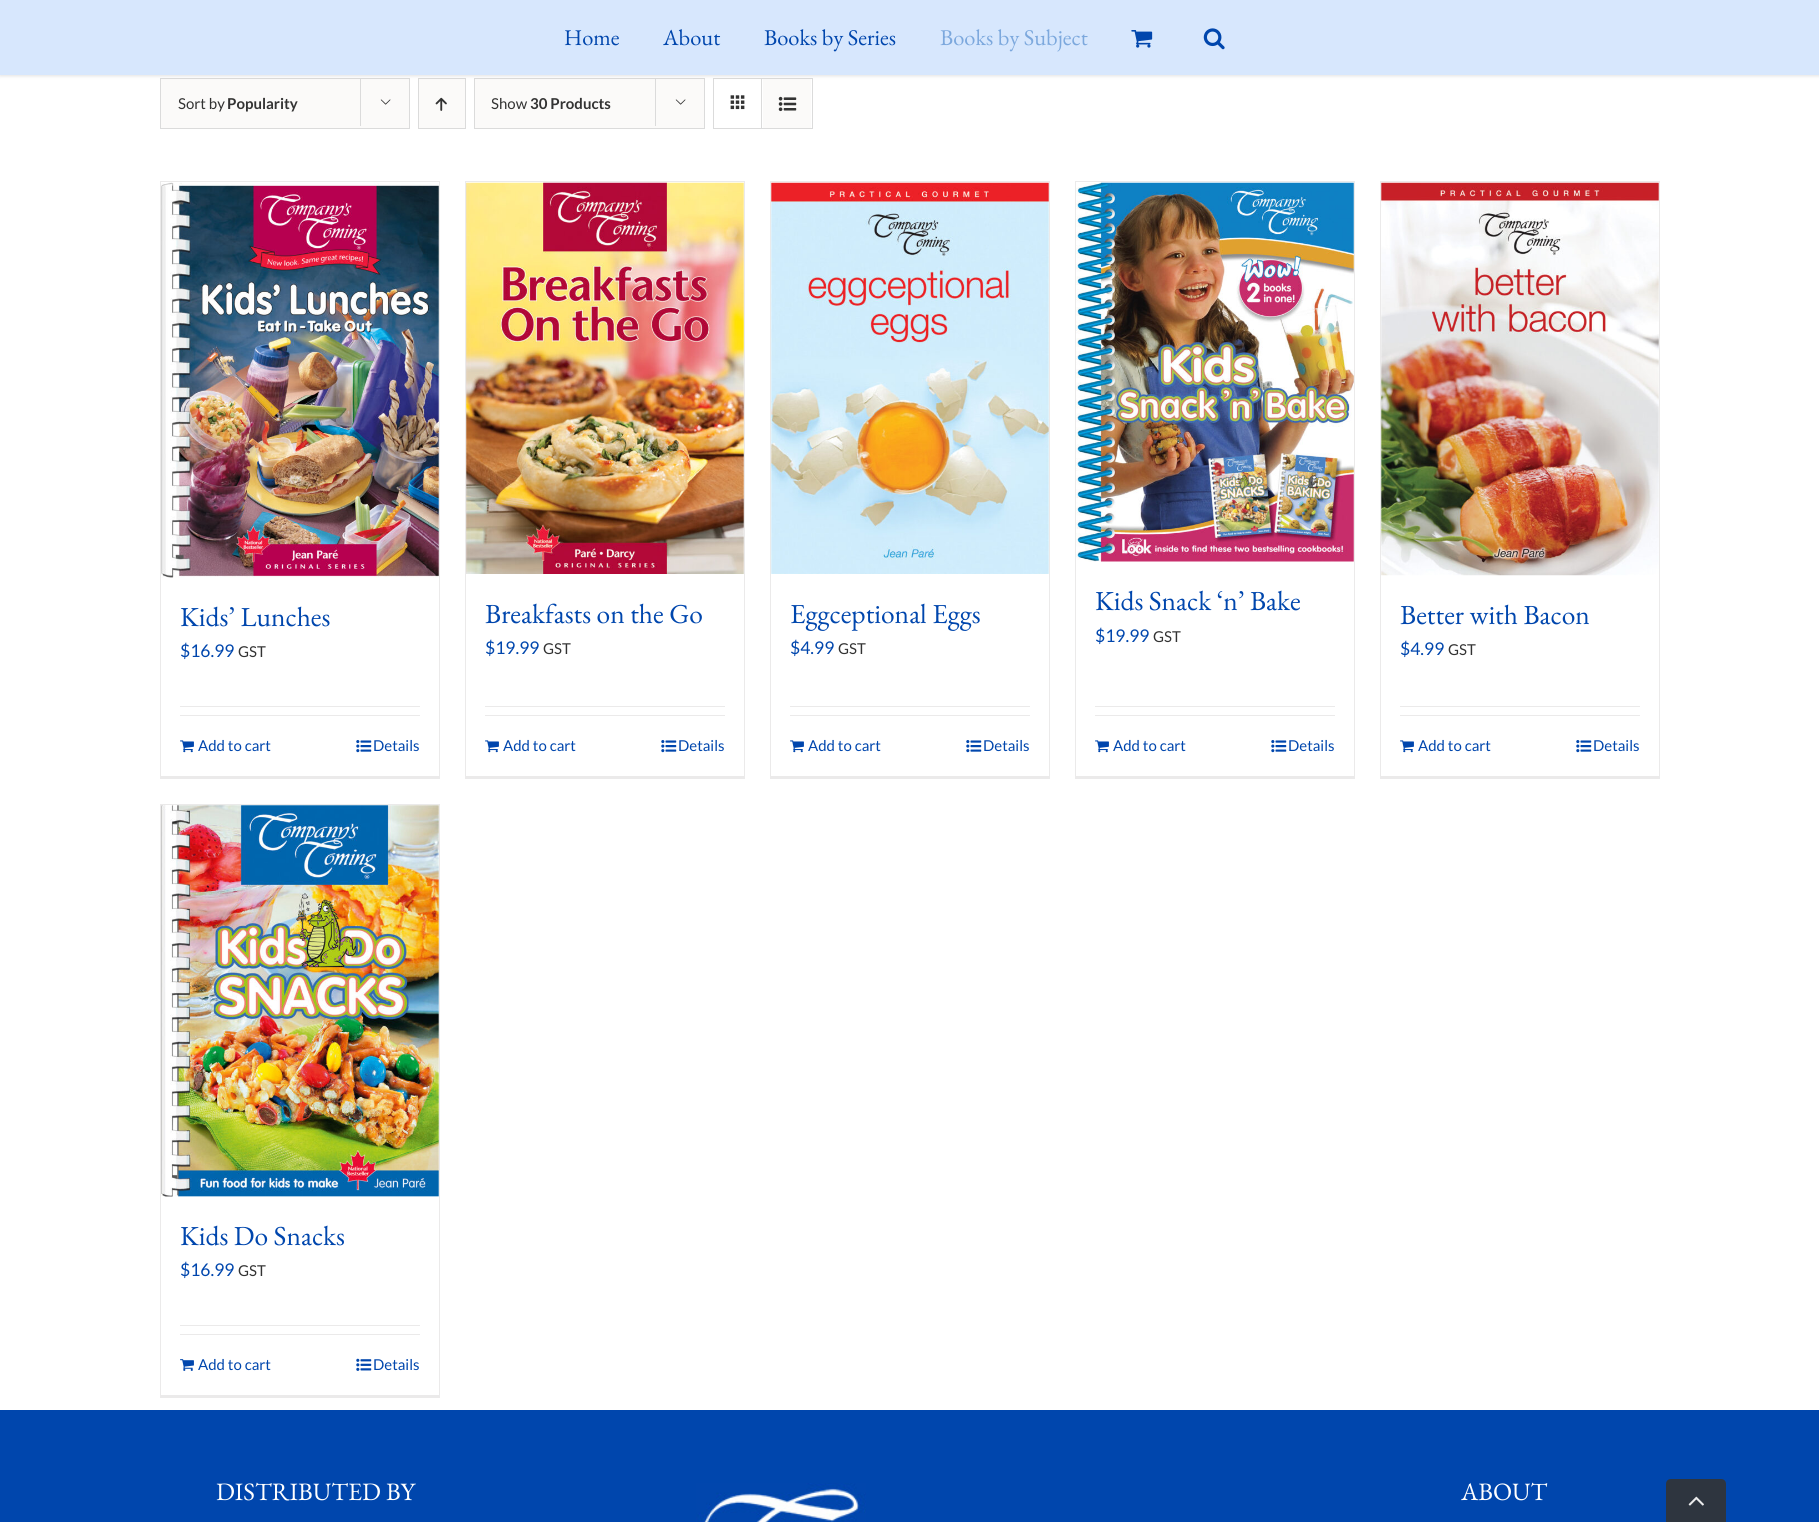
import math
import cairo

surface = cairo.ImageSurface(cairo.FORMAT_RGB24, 1819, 1522)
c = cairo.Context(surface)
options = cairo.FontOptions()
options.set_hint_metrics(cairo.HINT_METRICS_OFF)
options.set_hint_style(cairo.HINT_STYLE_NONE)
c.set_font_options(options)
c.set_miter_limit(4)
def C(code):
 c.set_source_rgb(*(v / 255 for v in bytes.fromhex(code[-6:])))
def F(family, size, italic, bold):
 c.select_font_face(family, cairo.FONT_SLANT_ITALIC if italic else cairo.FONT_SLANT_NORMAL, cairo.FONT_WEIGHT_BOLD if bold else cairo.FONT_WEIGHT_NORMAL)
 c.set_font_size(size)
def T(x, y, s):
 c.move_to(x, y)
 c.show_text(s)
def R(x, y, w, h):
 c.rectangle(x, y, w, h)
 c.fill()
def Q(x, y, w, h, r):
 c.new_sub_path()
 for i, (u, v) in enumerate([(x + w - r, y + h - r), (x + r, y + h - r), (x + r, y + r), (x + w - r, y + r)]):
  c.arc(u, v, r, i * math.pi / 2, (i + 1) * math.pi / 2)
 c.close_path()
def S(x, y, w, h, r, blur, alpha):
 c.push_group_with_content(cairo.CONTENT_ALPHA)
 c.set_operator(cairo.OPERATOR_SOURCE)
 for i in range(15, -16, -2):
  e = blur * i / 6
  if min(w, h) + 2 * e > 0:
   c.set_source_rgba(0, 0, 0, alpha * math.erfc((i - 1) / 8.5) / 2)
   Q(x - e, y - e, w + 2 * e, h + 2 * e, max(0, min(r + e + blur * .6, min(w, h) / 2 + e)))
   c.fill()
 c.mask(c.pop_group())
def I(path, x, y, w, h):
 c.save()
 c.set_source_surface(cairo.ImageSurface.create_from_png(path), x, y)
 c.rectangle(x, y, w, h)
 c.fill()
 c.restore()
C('ffffff')
c.paint()
C('fbfaf9')
c.rectangle(160.5,78.5,249,50)
c.fill_preserve()
C('dbdbdb')
c.set_line_width(1)
c.stroke()
R(360,78,1,48)
C('fbfaf9')
c.rectangle(418.5,78.5,47,50)
c.fill_preserve()
C('dbdbdb')
c.stroke()
C('fbfaf9')
c.rectangle(474.5,78.5,230,50)
c.fill_preserve()
C('dbdbdb')
c.stroke()
R(655,78,1,48)
c.rectangle(713.5,78.5,99,50)
c.stroke()
R(761,79,1,49)
C('fbfaf9')
R(763,79,48,49)
C('000000')
S(0,1,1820,75,0,2,.12)
C('d7e7fd')
R(0,0,1819,75)
F('EB Garamond',22.5,0,0)
C('0046ad')
T(564,45,'Home')
T(663,45,'About')
T(764,45,'Books by Series')
C('7ca8dd')
T(940,45,'Books by Subject')
I('1.png',1131,30,22,18)
I('2.png',1203,28,22,22)
F('Lato',15,0,0)
C('333333')
T(178,109,'Sort by')
F('Lato',15,0,1)
T(227,109,'Popularity')
I('3.png',380,99,11,6)
I('4.png',435,97,12,14)
F('Lato',15,0,0)
T(491,109,'Show')
F('Lato',15,0,1)
T(530,109,'30 Products')
I('3.png',675,99,11,6)
I('5.png',730,95,15,15)
I('6.png',778,96,19,16)
C('ebeaea')
R(160,181,280,1)
R(439,181,1,598)
R(160,776,280,3)
R(160,181,1,598)
I('7.png',161,182,278,396)
F('EB Garamond',27.5,0,0)
C('0046ad')
T(180,626,'Kids’ Lunches')
F('Lato',17.5,0,0)
T(180,657,'$16.99')
F('Lato',15,0,0)
C('333333')
T(238,657,'GST')
C('ebeaea')
R(180,706,240,1)
R(180,715,240,1)
I('8.png',180,740,14,13)
C('0046ad')
T(198,751,'Add to cart')
I('9.png',356,740,16,13)
T(373,751,'Details')
C('ebeaea')
R(465,181,280,1)
R(744,181,1,598)
R(465,776,280,3)
R(465,181,1,598)
I('10.png',466,182,278,392)
F('EB Garamond',27.5,0,0)
C('0046ad')
T(485,623,'Breakfasts on the Go')
F('Lato',17.5,0,0)
T(485,654,'$19.99')
F('Lato',15,0,0)
C('333333')
T(543,654,'GST')
C('ebeaea')
R(485,706,240,1)
R(485,715,240,1)
I('8.png',485,740,14,13)
C('0046ad')
T(503,751,'Add to cart')
I('9.png',661,740,16,13)
T(678,751,'Details')
C('ebeaea')
R(770,181,280,1)
R(1049,181,1,598)
R(770,776,280,3)
R(770,181,1,598)
I('11.png',771,182,278,392)
F('EB Garamond',27.5,0,0)
C('0046ad')
T(790,623,'Eggceptional Eggs')
F('Lato',17.5,0,0)
T(790,654,'$4.99')
F('Lato',15,0,0)
C('333333')
T(838,654,'GST')
C('ebeaea')
R(790,706,240,1)
R(790,715,240,1)
I('8.png',790,740,14,13)
C('0046ad')
T(808,751,'Add to cart')
I('9.png',966,740,16,13)
T(983,751,'Details')
C('ebeaea')
R(1075,181,280,1)
R(1354,181,1,598)
R(1075,776,280,3)
R(1075,181,1,598)
I('12.png',1076,182,278,380)
F('EB Garamond',27.5,0,0)
C('0046ad')
T(1095,610,'Kids Snack ‘n’ Bake')
F('Lato',17.5,0,0)
T(1095,642,'$19.99')
F('Lato',15,0,0)
C('333333')
T(1153,642,'GST')
C('ebeaea')
R(1095,706,240,1)
R(1095,715,240,1)
I('8.png',1095,740,14,13)
C('0046ad')
T(1113,751,'Add to cart')
I('9.png',1271,740,16,13)
T(1288,751,'Details')
C('ebeaea')
R(1380,181,280,1)
R(1659,181,1,598)
R(1380,776,280,3)
R(1380,181,1,598)
I('13.png',1381,182,278,394)
F('EB Garamond',27.5,0,0)
C('0046ad')
T(1400,624,'Better with Bacon')
F('Lato',17.5,0,0)
T(1400,655,'$4.99')
F('Lato',15,0,0)
C('333333')
T(1448,655,'GST')
C('ebeaea')
R(1400,706,240,1)
R(1400,715,240,1)
I('8.png',1400,740,14,13)
C('0046ad')
T(1418,751,'Add to cart')
I('9.png',1576,740,16,13)
T(1593,751,'Details')
C('ebeaea')
R(160,804,280,1)
R(439,804,1,594)
R(160,1395,280,3)
R(160,804,1,594)
I('14.png',161,805,278,392)
F('EB Garamond',27.5,0,0)
C('0046ad')
T(180,1245,'Kids Do Snacks')
F('Lato',17.5,0,0)
T(180,1276,'$16.99')
F('Lato',15,0,0)
C('333333')
T(238,1276,'GST')
C('ebeaea')
R(180,1325,240,1)
R(180,1334,240,1)
I('15.png',180,1359,14,12)
C('0046ad')
T(198,1370,'Add to cart')
I('16.png',356,1358,16,13)
T(373,1370,'Details')
R(0,1410,1819,112)
F('EB Garamond',25,0,0)
C('ffffff')
T(216,1500,'DISTRIBUTED BY')
I('17.png',696,1483,170,39)
T(1461,1500,'ABOUT')
C('2e353f')
c.new_path()
c.move_to(1671,1479)
c.line_to(1721,1479)
c.curve_to(1724,1479,1726,1481,1726,1484)
c.line_to(1726,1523)
c.line_to(1666,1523)
c.line_to(1666,1484)
c.curve_to(1666,1481,1668,1479,1671,1479)
c.close_path()
c.fill()
I('18.png',1688,1496,16,10)
surface.write_to_png('o.png')
